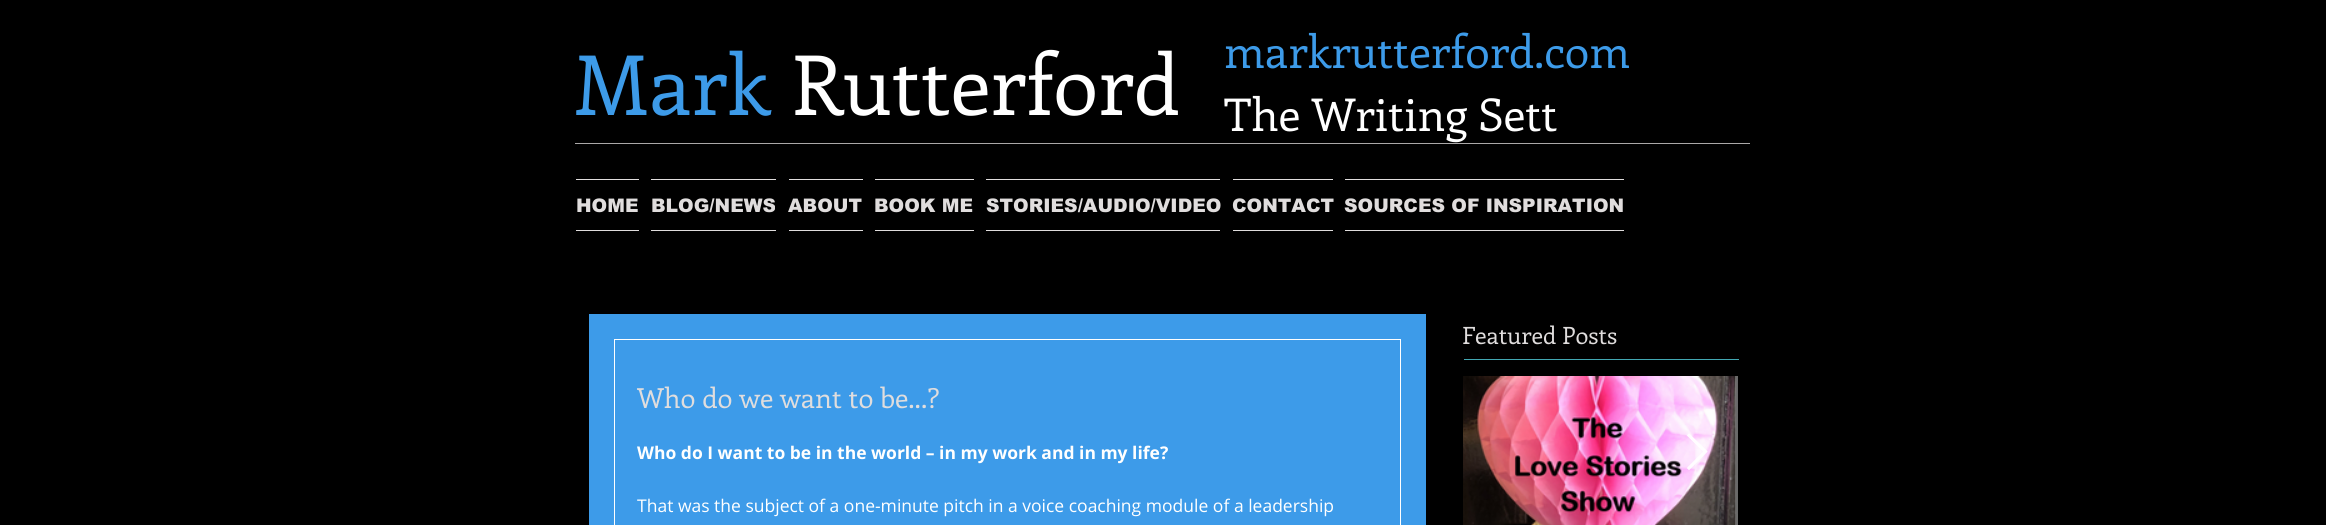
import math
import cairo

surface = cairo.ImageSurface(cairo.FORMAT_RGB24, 2326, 525)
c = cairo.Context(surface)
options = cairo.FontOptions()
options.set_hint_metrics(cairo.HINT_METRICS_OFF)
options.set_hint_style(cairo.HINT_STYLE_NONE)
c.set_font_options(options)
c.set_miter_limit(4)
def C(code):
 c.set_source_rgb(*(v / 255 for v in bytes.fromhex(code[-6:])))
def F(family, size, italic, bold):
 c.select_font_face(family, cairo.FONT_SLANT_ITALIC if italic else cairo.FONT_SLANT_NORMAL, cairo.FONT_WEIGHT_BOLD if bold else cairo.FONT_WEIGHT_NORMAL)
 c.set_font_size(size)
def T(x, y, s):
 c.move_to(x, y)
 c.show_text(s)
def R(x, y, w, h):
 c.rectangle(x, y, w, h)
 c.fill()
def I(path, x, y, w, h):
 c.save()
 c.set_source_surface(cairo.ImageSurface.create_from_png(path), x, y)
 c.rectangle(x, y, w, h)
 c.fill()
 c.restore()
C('000000')
c.paint()
F('Enriqueta',82.5,0,0)
C('3d9be9')
T(574,115,'Mark')
C('ffffff')
T(791,115,'Rutterford')
F('Enriqueta',45,0,0)
C('3d9be9')
T(1224,68,'markrutterford.com')
C('ffffff')
T(1224,131,'The Writing Sett')
C('aaa8a8')
R(575,143,1175,1)
C('e0dddd')
R(576,179,63,1)
R(576,230,63,1)
F('arial Black',18.75,0,0)
T(576,212,'HOME')
R(651,179,125,1)
R(651,230,125,1)
T(651,212,'BLOG/NEWS')
R(789,179,74,1)
R(789,230,74,1)
T(788,212,'ABOUT')
R(875,179,99,1)
R(875,230,99,1)
T(874,212,'BOOK ME')
R(986,179,234,1)
R(986,230,234,1)
T(986,212,'STORIES/AUDIO/VIDEO')
R(1233,179,100,1)
R(1233,230,100,1)
T(1232,212,'CONTACT')
R(1345,179,279,1)
R(1345,230,279,1)
T(1344,212,'SOURCES OF INSPIRATION')
F('Enriqueta',23.75,0,0)
T(1462,344,'Featured Posts')
C('42a7b2')
R(1464,359,275,1)
C('3d9be9')
R(589,314,837,211)
c.rectangle(614.5,339.5,786,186)
C('ffffff')
c.set_line_width(1)
c.stroke()
F('Enriqueta',27.5,0,0)
C('e0dddd')
T(637,408,'Who do we want to be...?')
F('Open Sans',17.5,0,1)
C('ffffff')
T(637,459,'Who do I want to be in the world – in my work and in my life?')
F('Open Sans',17.5,0,0)
T(637,512,'That was the subject of a one-minute pitch in a voice coaching module of a leadership')
I('1.png',1463,376,275,149)
c.set_source_rgba(1,1,1,0.9)
c.new_path()
c.move_to(1687.5,435.5)
c.line_to(1689,434)
c.line_to(1707,451.5)
c.line_to(1689,469.5)
c.line_to(1687.5,468)
c.line_to(1704,451.5)
c.close_path()
c.fill_preserve()
c.stroke()
surface.write_to_png('o.png')
